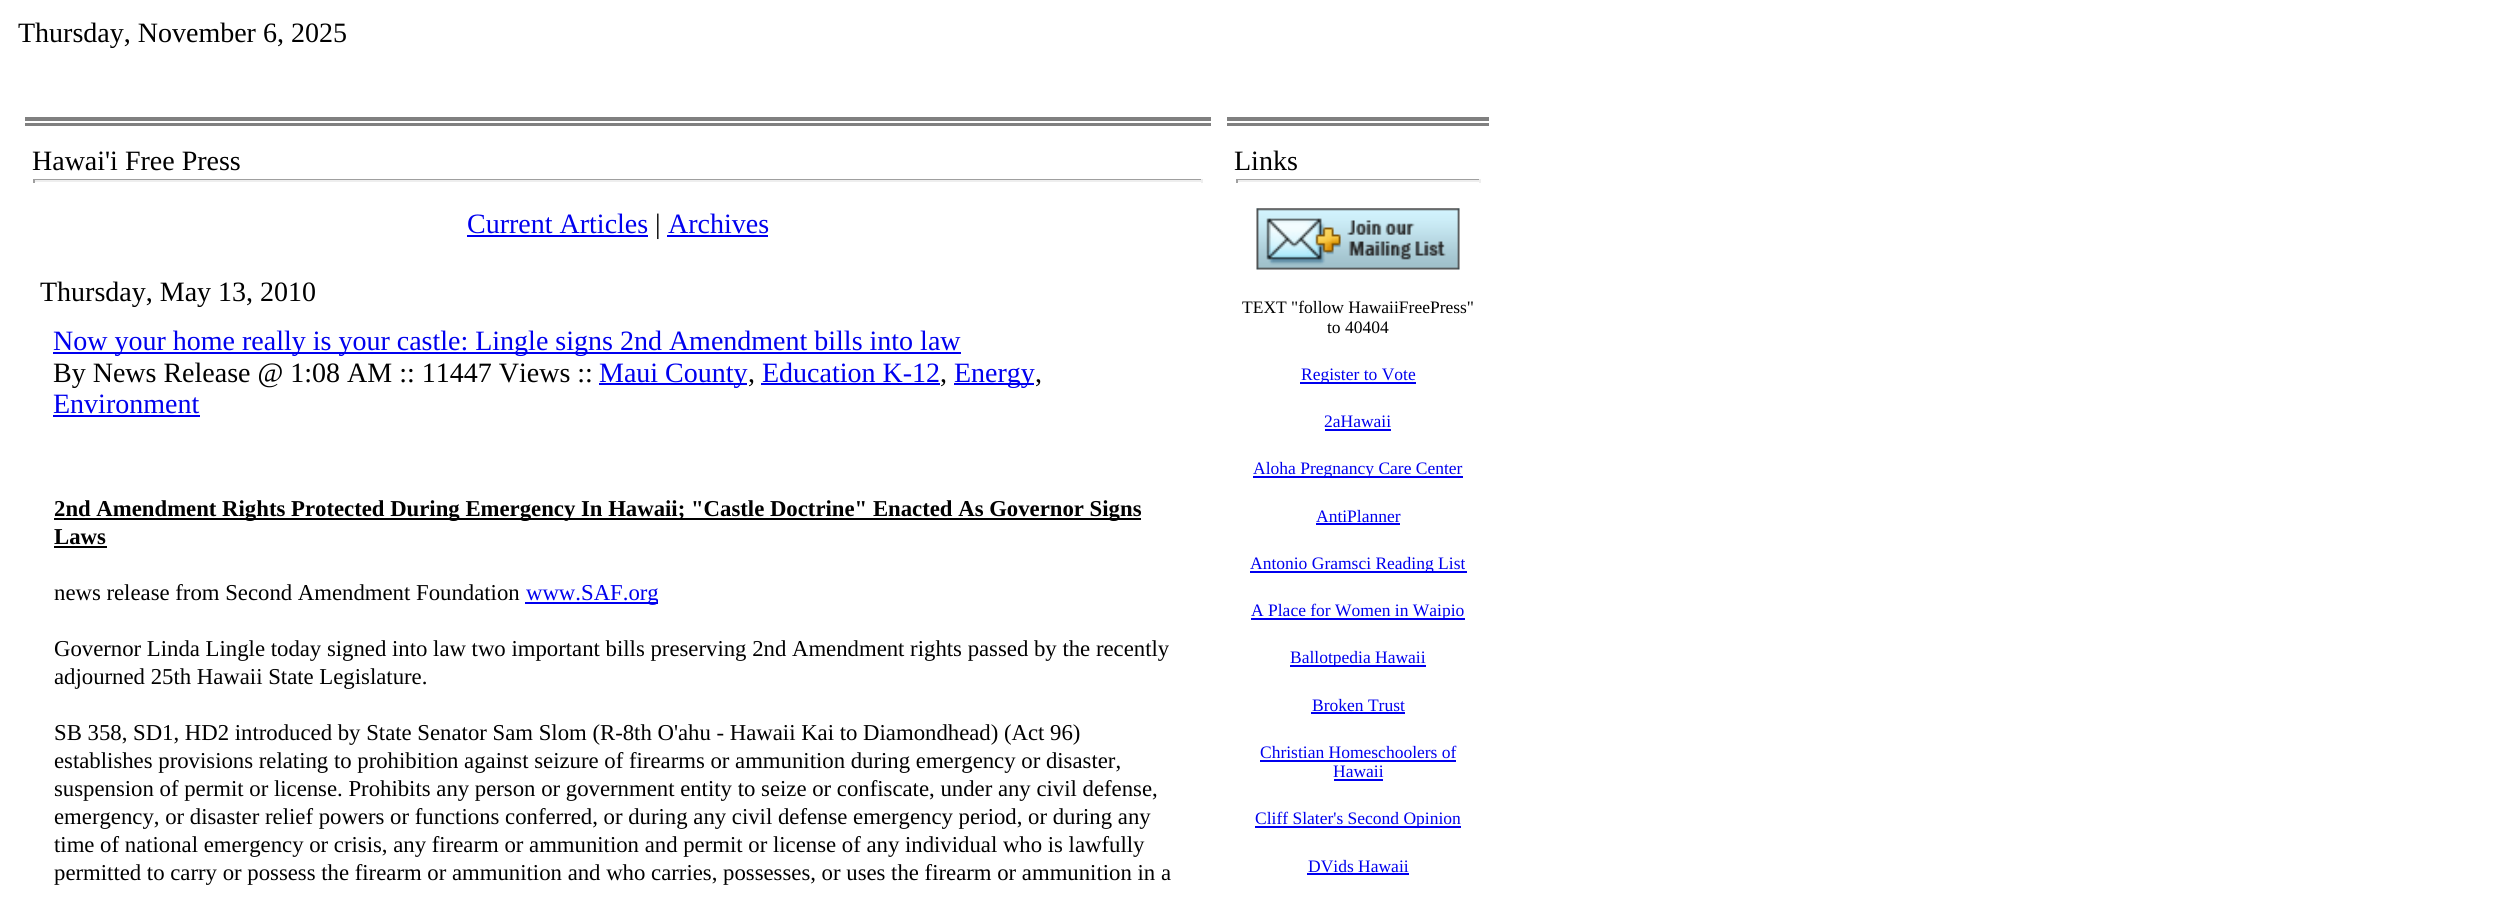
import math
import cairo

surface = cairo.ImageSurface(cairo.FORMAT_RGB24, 2505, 899)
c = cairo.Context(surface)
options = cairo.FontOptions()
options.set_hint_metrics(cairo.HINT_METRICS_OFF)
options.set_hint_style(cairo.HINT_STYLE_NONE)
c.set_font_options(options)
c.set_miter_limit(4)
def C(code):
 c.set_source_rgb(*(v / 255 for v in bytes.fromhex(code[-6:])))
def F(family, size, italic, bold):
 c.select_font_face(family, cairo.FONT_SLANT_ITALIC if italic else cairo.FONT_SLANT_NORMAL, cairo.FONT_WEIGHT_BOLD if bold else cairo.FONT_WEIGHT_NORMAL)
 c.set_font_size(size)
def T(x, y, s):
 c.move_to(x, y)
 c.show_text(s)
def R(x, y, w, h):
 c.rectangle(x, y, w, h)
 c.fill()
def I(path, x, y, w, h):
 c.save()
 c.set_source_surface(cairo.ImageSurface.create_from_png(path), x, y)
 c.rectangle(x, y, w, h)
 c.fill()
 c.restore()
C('ffffff')
c.paint()
F('Liberation Serif',28,0,0)
C('000000')
T(18,42,'Thursday, November 6, 2025')
C('808080')
R(25,117,1186,4)
R(25,123,1186,3)
C('000000')
T(32,170,'Hawai\'i Free Press')
C('9f9f9f')
R(33,179,1169,1)
C('eeeeee')
R(1201,179,2,4)
R(33,180,1169,2)
C('9f9f9f')
R(33,179,2,4)
C('0000ee')
T(467,233,'Current Articles')
R(467,235,181,2)
C('000000')
T(655,233,'|')
C('0000ee')
T(668,233,'Archives')
R(667,235,101,2)
C('000000')
T(40,301,'Thursday, May 13, 2010')
C('0000ee')
R(53,352,908,2)
T(53,350,'Now your home really is your castle: Lingle signs 2nd Amendment bills into law')
C('000000')
T(53,382,'By News Release @ 1:08 AM :: 11447 Views ::')
C('0000ee')
R(599,383,148,2)
T(599,382,'Maui County')
C('000000')
T(748,382,',')
C('0000ee')
T(762,382,'Education K-12')
R(761,383,179,2)
C('000000')
T(940,382,',')
C('0000ee')
R(954,383,80,2)
T(954,382,'Energy')
C('000000')
T(1035,382,',')
C('0000ee')
T(53,413,'Environment')
R(53,415,147,2)
C('000000')
R(54,518,1087,2)
F('Liberation Serif',22.75,0,1)
T(54,516,'2nd Amendment Rights Protected During Emergency In Hawaii; "Castle Doctrine" Enacted As Governor Signs')
T(54,544,'Laws')
R(54,546,53,2)
F('Liberation Serif',22.75,0,0)
T(54,600,'news release from Second Amendment Foundation')
C('0000ee')
R(525,602,133,2)
T(526,600,'www.SAF.org')
C('000000')
T(54,656,'Governor Linda Lingle today signed into law two important bills preserving 2nd Amendment rights passed by the recently')
T(54,684,'adjourned 25th Hawaii State Legislature.')
T(54,740,'SB 358, SD1, HD2 introduced by State Senator Sam Slom (R-8th O\'ahu - Hawaii Kai to Diamondhead) (Act 96)')
T(54,768,'establishes provisions relating to prohibition against seizure of firearms or ammunition during emergency or disaster,')
T(54,796,'suspension of permit or license. Prohibits any person or government entity to seize or confiscate, under any civil defense,')
T(54,824,'emergency, or disaster relief powers or functions conferred, or during any civil defense emergency period, or during any')
T(54,852,'time of national emergency or crisis, any firearm or ammunition and permit or license of any individual who is lawfully')
T(54,880,'permitted to carry or possess the firearm or ammunition and who carries, possesses, or uses the firearm or ammunition in a')
C('808080')
R(1227,117,262,4)
R(1227,123,262,3)
F('Liberation Serif',28,0,0)
C('000000')
T(1234,170,'Links')
C('9f9f9f')
R(1236,179,245,1)
C('eeeeee')
R(1479,179,2,4)
R(1236,180,245,2)
C('9f9f9f')
R(1236,179,2,4)
I('1.png',1256,208,204,62)
F('Liberation Serif',17.5,0,0)
C('000000')
T(1242,313,'TEXT "follow HawaiiFreePress"')
T(1327,333,'to 40404')
C('0000ee')
R(1300,382,116,2)
T(1301,380,'Register to Vote')
T(1324,427,'2aHawaii')
R(1325,429,66,2)
R(1253,476,210,2)
T(1253,474,'Aloha Pregnancy Care Center')
T(1316,522,'AntiPlanner')
R(1316,523,84,2)
R(1250,571,217,2)
T(1250,569,'Antonio Gramsci Reading List')
R(1251,618,214,2)
T(1251,616,'A Place for Women in Waipio')
R(1290,665,136,2)
T(1290,663,'Ballotpedia Hawaii')
T(1312,711,'Broken Trust')
R(1311,712,94,2)
T(1260,758,'Christian Homeschoolers of')
R(1260,760,196,2)
T(1333,777,'Hawaii')
R(1334,779,49,2)
R(1255,826,206,2)
T(1255,824,'Cliff Slater\'s Second Opinion')
T(1308,872,'DVids Hawaii')
R(1307,873,102,2)
surface.write_to_png('o.png')
